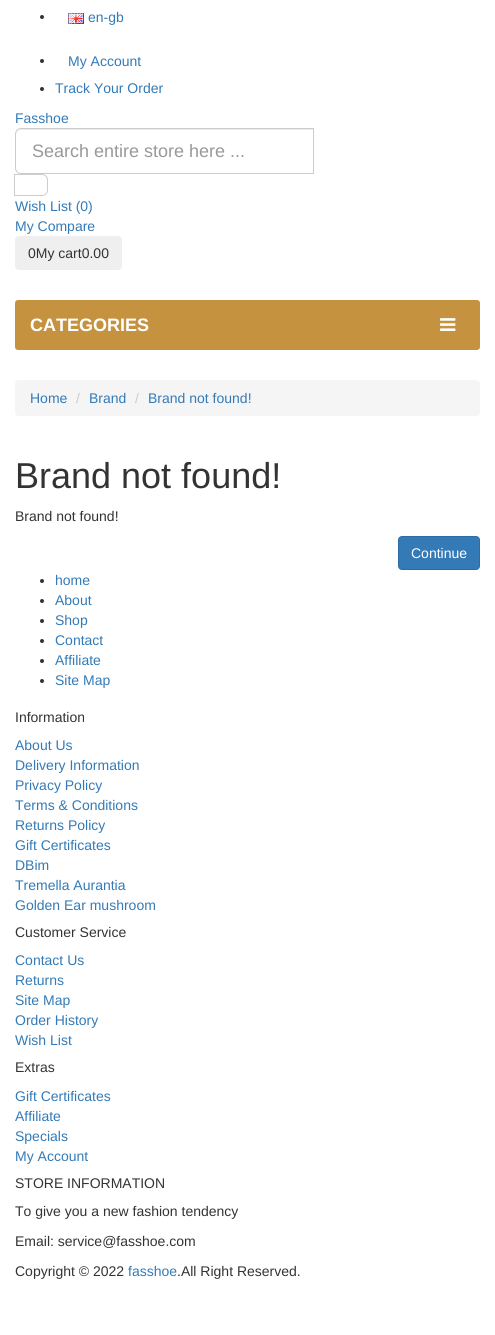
import math
import cairo

surface = cairo.ImageSurface(cairo.FORMAT_RGB24, 495, 1335)
c = cairo.Context(surface)
options = cairo.FontOptions()
options.set_hint_metrics(cairo.HINT_METRICS_OFF)
options.set_hint_style(cairo.HINT_STYLE_NONE)
c.set_font_options(options)
c.set_miter_limit(4)
def C(code):
 c.set_source_rgb(*(v / 255 for v in bytes.fromhex(code[-6:])))
def F(family, size, italic, bold):
 c.select_font_face(family, cairo.FONT_SLANT_ITALIC if italic else cairo.FONT_SLANT_NORMAL, cairo.FONT_WEIGHT_BOLD if bold else cairo.FONT_WEIGHT_NORMAL)
 c.set_font_size(size)
def T(x, y, s):
 c.move_to(x, y)
 c.show_text(s)
def Q(x, y, w, h, r):
 c.new_sub_path()
 for i, (u, v) in enumerate([(x + w - r, y + h - r), (x + r, y + h - r), (x + r, y + r), (x + w - r, y + r)]):
  c.arc(u, v, r, i * math.pi / 2, (i + 1) * math.pi / 2)
 c.close_path()
def I(path, x, y, w, h):
 c.save()
 c.set_source_surface(cairo.ImageSurface.create_from_png(path), x, y)
 c.rectangle(x, y, w, h)
 c.fill()
 c.restore()
C('ffffff')
c.paint()
C('333333')
c.arc(42,17,2,0,2 * math.pi)
c.fill()
I('1.png',68,13,16,11)
F('Liberation Sans',14,0,0)
C('337ab7')
T(88,22,'en-gb')
C('333333')
c.new_path()
c.arc(42,61,2,0,2 * math.pi)
c.fill()
C('337ab7')
T(68,66,'My Account')
C('333333')
c.new_path()
c.arc(42,89,2,0,2 * math.pi)
c.fill()
C('337ab7')
T(55,93,'Track Your Order')
T(15,123,'Fasshoe')
C('ececec')
c.new_path()
c.move_to(21,130)
c.line_to(313,130)
c.line_to(313,129)
c.line_to(21,129)
c.curve_to(18,129,16,131,16,134)
c.line_to(16,135)
c.curve_to(16,132,18,130,21,130)
c.close_path()
c.fill()
c.new_path()
c.move_to(21,128.5)
c.line_to(313.5,128.5)
c.line_to(313.5,173.5)
c.line_to(21,173.5)
c.curve_to(18,173.5,15.5,171,15.5,168)
c.line_to(15.5,134)
c.curve_to(15.5,131,18,128.5,21,128.5)
c.close_path()
C('cccccc')
c.set_line_width(1)
c.stroke()
F('Liberation Sans',18,0,0)
C('999999')
T(32,157,'Search entire store here ...')
c.new_path()
c.move_to(14.5,174.5)
c.line_to(42,174.5)
c.curve_to(45,174.5,47.5,177,47.5,180)
c.line_to(47.5,190)
c.curve_to(47.5,193,45,195.5,42,195.5)
c.line_to(14.5,195.5)
c.close_path()
C('cccccc')
c.stroke()
F('Liberation Sans',14,0,0)
C('337ab7')
T(15,211,'Wish List (0)')
T(15,231,'My Compare')
C('efefef')
Q(15,236,107,34,4)
c.fill()
C('333333')
T(28,258,'0My cart0.00')
C('c59340')
Q(15,300,465,50,3)
c.fill()
F('Liberation Sans',18,0,1)
C('ffffff')
T(30,331,'CATEGORIES')
I('2.png',440,318,16,13)
C('f5f5f5')
Q(15,380,465,36,4)
c.fill()
F('Liberation Sans',14,0,0)
C('337ab7')
T(30,403,'Home')
C('cccccc')
T(76,403,'/')
C('337ab7')
T(89,403,'Brand')
C('cccccc')
T(135,403,'/')
C('337ab7')
T(148,403,'Brand not found!')
F('Liberation Sans',36,0,0)
C('333333')
T(15,488,'Brand not found!')
F('Liberation Sans',14,0,0)
T(15,521,'Brand not found!')
C('337ab7')
Q(398.5,536.5,81,33,3.5)
c.fill_preserve()
C('2e6da4')
c.stroke()
C('ffffff')
T(411,558,'Continue')
C('333333')
c.new_path()
c.arc(42,581,2,0,2 * math.pi)
c.fill()
C('337ab7')
T(55,585,'home')
C('333333')
c.new_path()
c.arc(42,601,2,0,2 * math.pi)
c.fill()
C('337ab7')
T(55,605,'About')
C('333333')
c.new_path()
c.arc(42,621,2,0,2 * math.pi)
c.fill()
C('337ab7')
T(55,625,'Shop')
C('333333')
c.new_path()
c.arc(42,641,2,0,2 * math.pi)
c.fill()
C('337ab7')
T(55,645,'Contact')
C('333333')
c.new_path()
c.arc(42,661,2,0,2 * math.pi)
c.fill()
C('337ab7')
T(55,665,'Affiliate')
C('333333')
c.new_path()
c.arc(42,681,2,0,2 * math.pi)
c.fill()
C('337ab7')
T(55,685,'Site Map')
C('333333')
T(15,722,'Information')
C('337ab7')
T(15,750,'About Us')
T(15,770,'Delivery Information')
T(15,790,'Privacy Policy')
T(15,810,'Terms & Conditions')
T(15,830,'Returns Policy')
T(15,850,'Gift Certificates')
T(15,870,'DBim')
T(15,890,'Tremella Aurantia')
T(15,910,'Golden Ear mushroom')
C('333333')
T(15,937,'Customer Service')
C('337ab7')
T(15,965,'Contact Us')
T(15,985,'Returns')
T(15,1005,'Site Map')
T(15,1025,'Order History')
T(15,1045,'Wish List')
C('333333')
T(15,1072,'Extras')
C('337ab7')
T(15,1101,'Gift Certificates')
T(15,1121,'Affiliate')
T(15,1141,'Specials')
T(15,1161,'My Account')
C('333333')
T(15,1188,'STORE INFORMATION')
T(15,1216,'To give you a new fashion tendency')
T(15,1246,'Email: service@fasshoe.com')
T(15,1276,'Copyright © 2022')
C('337ab7')
T(128,1276,'fasshoe')
C('333333')
T(177,1276,'.All Right Reserved.')
surface.write_to_png('o.png')
